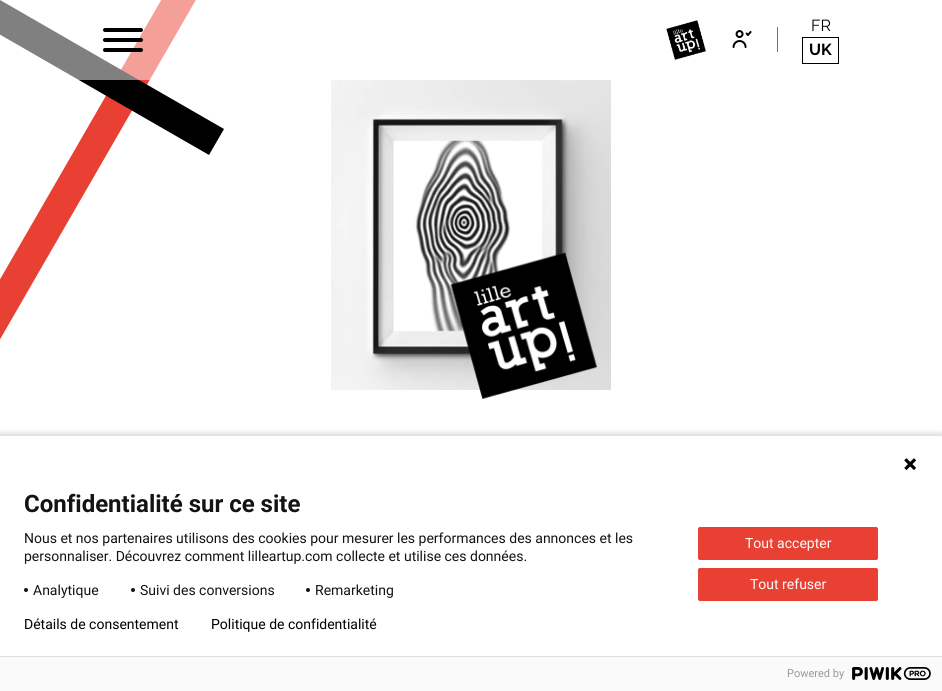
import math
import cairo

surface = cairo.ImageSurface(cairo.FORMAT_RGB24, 942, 691)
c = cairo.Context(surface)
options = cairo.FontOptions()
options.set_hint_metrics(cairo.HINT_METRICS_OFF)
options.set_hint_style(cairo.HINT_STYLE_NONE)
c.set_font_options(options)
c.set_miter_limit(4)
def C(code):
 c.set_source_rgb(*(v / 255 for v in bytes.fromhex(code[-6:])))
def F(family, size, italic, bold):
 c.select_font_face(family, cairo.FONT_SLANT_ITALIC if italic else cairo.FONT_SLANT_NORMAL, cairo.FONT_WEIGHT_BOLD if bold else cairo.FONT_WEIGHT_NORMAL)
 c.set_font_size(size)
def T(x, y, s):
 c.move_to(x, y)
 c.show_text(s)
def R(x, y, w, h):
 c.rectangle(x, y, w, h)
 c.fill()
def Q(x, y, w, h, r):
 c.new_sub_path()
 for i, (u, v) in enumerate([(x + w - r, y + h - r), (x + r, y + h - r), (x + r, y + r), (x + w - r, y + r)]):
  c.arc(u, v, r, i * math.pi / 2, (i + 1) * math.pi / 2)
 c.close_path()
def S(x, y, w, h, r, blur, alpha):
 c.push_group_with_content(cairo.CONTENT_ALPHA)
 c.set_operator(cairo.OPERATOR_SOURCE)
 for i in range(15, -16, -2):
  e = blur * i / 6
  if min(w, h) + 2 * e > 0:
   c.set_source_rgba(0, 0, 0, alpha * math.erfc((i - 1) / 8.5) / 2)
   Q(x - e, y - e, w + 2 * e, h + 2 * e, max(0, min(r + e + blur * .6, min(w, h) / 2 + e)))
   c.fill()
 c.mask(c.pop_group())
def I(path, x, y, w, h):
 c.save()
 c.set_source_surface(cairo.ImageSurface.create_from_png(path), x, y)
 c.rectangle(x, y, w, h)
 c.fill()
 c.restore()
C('ffffff')
c.paint()
C('e84133')
c.new_path()
c.move_to(-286,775)
c.line_to(377,-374)
c.line_to(403,-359)
c.line_to(-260,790)
c.close_path()
c.fill()
C('000000')
c.new_path()
c.move_to(0,0)
c.line_to(224,129)
c.line_to(209,155)
c.line_to(-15,26)
c.close_path()
c.fill()
c.set_source_rgba(1,1,1,0.5)
R(0,0,196,80)
C('000000')
Q(103,28,40,4,2)
c.fill()
Q(103,38,40,4,2)
c.fill()
Q(103,48,40,4,2)
c.fill()
I('1.png',666,20,40,40)
I('2.png',732,30,20,18)
C('707070')
R(777,27,1,25)
F('Raleway',16,0,0)
C('000000')
T(811,31,'FR')
c.rectangle(802.5,37.5,36,26)
c.set_line_width(1)
c.stroke()
F('Raleway',16,0,1)
T(809,55,'UK')
I('3.png',331,80,280,310)
I('4.png',450,252,148,147)
C('000000')
S(-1,433,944,257,0,2.5,.14)
C('ffffff')
R(0,436,942,220)
I('5.png',904,458,13,13)
F('Roboto',24,0,1)
C('131313')
T(24,512,'Confidentialité sur ce site')
F('Roboto',14,0,0)
T(24,543,'Nous et nos partenaires utilisons des cookies pour mesurer les performances des annonces et les')
T(24,561,'personnaliser. Découvrez comment lilleartup.com collecte et utilise ces données.')
c.new_path()
c.arc(26,590,2,0,2 * math.pi)
c.fill()
T(33,595,'Analytique')
c.new_path()
c.arc(133,590,2,0,2 * math.pi)
c.fill()
T(140,595,'Suivi des conversions')
c.new_path()
c.arc(308,590,2,0,2 * math.pi)
c.fill()
T(315,595,'Remarketing')
C('e84133')
Q(698.5,527.5,179,32,1.5)
c.fill_preserve()
c.stroke()
C('fcfcfc')
T(745,548,'Tout accepter')
C('e84133')
Q(698.5,568.5,179,32,1.5)
c.fill_preserve()
c.stroke()
C('fcfcfc')
T(750,589,'Tout refuser')
C('000000')
T(24,629,'Détails de consentement')
T(211,629,'Politique de confidentialité')
C('fafafa')
R(0,657,942,34)
C('dddddd')
R(0,656,942,1)
F('Roboto',11,0,0)
C('999999')
T(787,677,'Powered by')
I('6.png',852,667,79,13)
surface.write_to_png('o.png')
